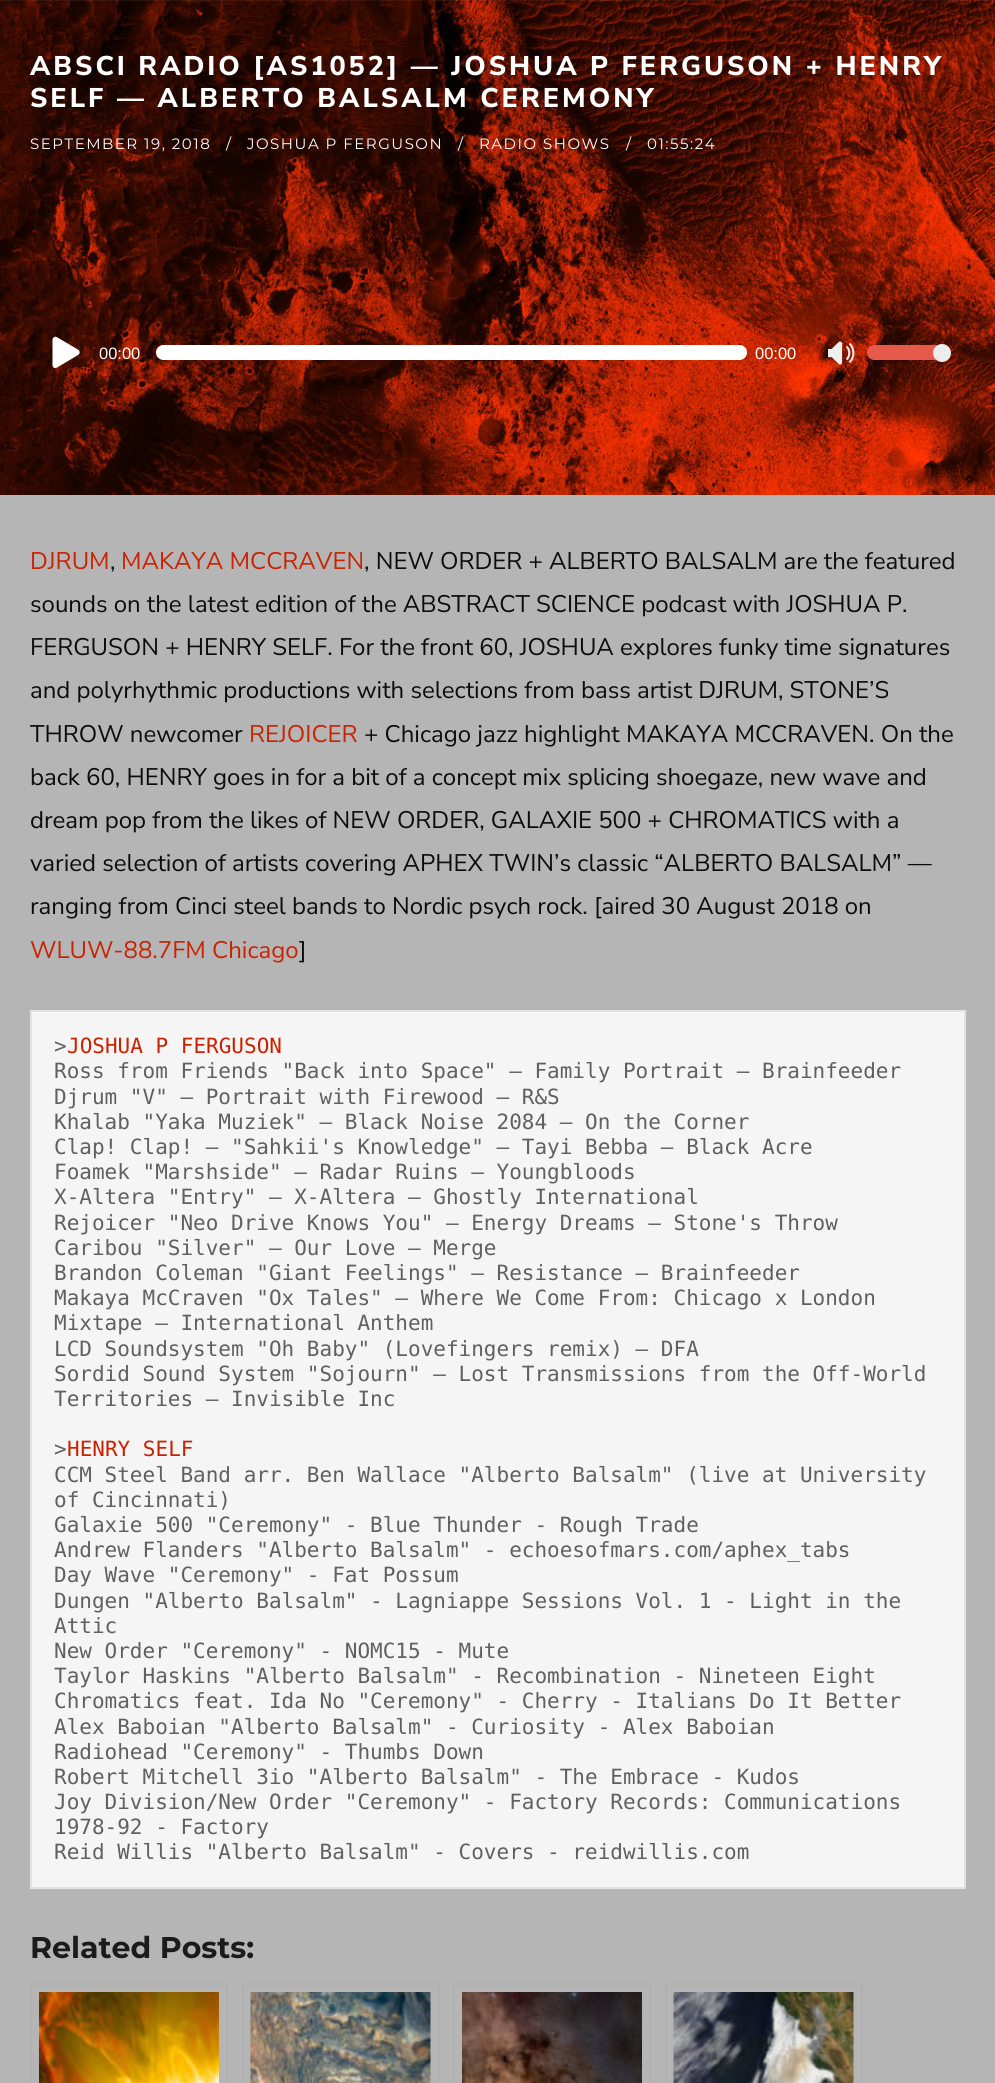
import math
import cairo

surface = cairo.ImageSurface(cairo.FORMAT_RGB24, 995, 2083)
c = cairo.Context(surface)
options = cairo.FontOptions()
options.set_hint_metrics(cairo.HINT_METRICS_OFF)
options.set_hint_style(cairo.HINT_STYLE_NONE)
c.set_font_options(options)
c.set_miter_limit(4)
def C(code):
 c.set_source_rgb(*(v / 255 for v in bytes.fromhex(code[-6:])))
def F(family, size, italic, bold):
 c.select_font_face(family, cairo.FONT_SLANT_ITALIC if italic else cairo.FONT_SLANT_NORMAL, cairo.FONT_WEIGHT_BOLD if bold else cairo.FONT_WEIGHT_NORMAL)
 c.set_font_size(size)
def T(x, y, s):
 c.move_to(x, y)
 c.show_text(s)
def L(x, y, s, letter, word):
 c.move_to(x, y)
 for ch in s:
  c.show_text(ch)
  c.rel_move_to(letter + word * (ch == ' '), 0)
def R(x, y, w, h):
 c.rectangle(x, y, w, h)
 c.fill()
def Q(x, y, w, h, r):
 c.new_sub_path()
 for i, (u, v) in enumerate([(x + w - r, y + h - r), (x + r, y + h - r), (x + r, y + r), (x + w - r, y + r)]):
  c.arc(u, v, r, i * math.pi / 2, (i + 1) * math.pi / 2)
 c.close_path()
def I(path, x, y, w, h):
 c.save()
 c.set_source_surface(cairo.ImageSurface.create_from_png(path), x, y)
 c.rectangle(x, y, w, h)
 c.fill()
 c.restore()
C('b5b5b5')
c.paint()
I('1.png',0,0,995,495)
c.set_source_rgba(1,1,1,0.05)
R(0,0,995,1)
F('Nunito Sans ExtraBold',27,0,0)
C('ffffff')
L(30,75,'ABSCI RADIO [AS1052] — JOSHUA P FERGUSON + HENRY',3,0)
L(30,107,'SELF — ALBERTO BALSALM CEREMONY',3,0)
F('Montserrat',15,0,0)
L(30,149,'SEPTEMBER 19, 2018',1.5,0)
L(226,149,'/',1.5,0)
L(247,149,'JOSHUA P FERGUSON',1.5,0)
L(458,149,'/',1.5,0)
L(479,149,'RADIO SHOWS',1.5,0)
L(626,149,'/',1.5,0)
L(647,149,'01:55:24',1.5,0)
I('2.png',52,336,28,33)
F('Liberation Sans',16.5,0,0)
T(99,359,'00:00')
Q(156,345,591,15,7.5)
c.fill()
T(755,359,'00:00')
I('3.png',828,341,27,24)
C('e65a4b')
Q(867,345,75,15,7.5)
c.fill()
C('ededed')
c.arc(942,353,8,0,2 * math.pi)
c.fill_preserve()
c.stroke()
F('Nunito Sans',24,0,0)
C('c92200')
T(30,569,'DJRUM')
C('0c0c0c')
T(110,569,',')
C('c92200')
T(121,569,'MAKAYA MCCRAVEN')
C('0c0c0c')
T(364,569,', NEW ORDER + ALBERTO BALSALM are the featured')
T(30,612,'sounds on the latest edition of the ABSTRACT SCIENCE podcast with JOSHUA P.')
T(30,655,'FERGUSON + HENRY SELF. For the front 60, JOSHUA explores funky time signatures')
T(30,698,'and polyrhythmic productions with selections from bass artist DJRUM, STONE’S')
T(30,742,'THROW newcomer')
C('c92200')
T(249,742,'REJOICER')
C('0c0c0c')
T(364,742,'+ Chicago jazz highlight MAKAYA MCCRAVEN. On the')
T(30,785,'back 60, HENRY goes in for a bit of a concept mix splicing shoegaze, new wave and')
T(30,828,'dream pop from the likes of NEW ORDER, GALAXIE 500 + CHROMATICS with a')
T(30,871,'varied selection of artists covering APHEX TWIN’s classic “ALBERTO BALSALM” —')
T(30,914,'ranging from Cinci steel bands to Nordic psych rock. [aired 30 August 2018 on')
C('c92200')
T(30,958,'WLUW-88.7FM Chicago')
C('0c0c0c')
T(299,958,']')
C('f5f5f5')
c.rectangle(31,1011,934,877)
c.fill_preserve()
C('e2e2e2')
c.stroke()
F('DejaVu Sans Mono',21,0,0)
C('606060')
T(54,1053,'>')
C('c92200')
T(67,1053,'JOSHUA P FERGUSON')
C('606060')
T(54,1078,'Ross from Friends "Back into Space" — Family Portrait — Brainfeeder')
T(54,1104,'Djrum "V" — Portrait with Firewood — R&S')
T(54,1129,'Khalab "Yaka Muziek" — Black Noise 2084 — On the Corner')
T(54,1154,'Clap! Clap! — "Sahkii\'s Knowledge" — Tayi Bebba — Black Acre')
T(54,1179,'Foamek "Marshside" — Radar Ruins — Youngbloods')
T(54,1204,'X-Altera "Entry" — X-Altera — Ghostly International')
T(54,1230,'Rejoicer "Neo Drive Knows You" — Energy Dreams — Stone\'s Throw')
T(54,1255,'Caribou "Silver" — Our Love — Merge')
T(54,1280,'Brandon Coleman "Giant Feelings" — Resistance — Brainfeeder')
T(54,1305,'Makaya McCraven "Ox Tales" — Where We Come From: Chicago x London')
T(54,1330,'Mixtape — International Anthem')
T(54,1356,'LCD Soundsystem "Oh Baby" (Lovefingers remix) — DFA')
T(54,1381,'Sordid Sound System "Sojourn" — Lost Transmissions from the Off-World')
T(54,1406,'Territories — Invisible Inc')
T(54,1456,'>')
C('c92200')
T(67,1456,'HENRY SELF')
C('606060')
T(54,1482,'CCM Steel Band arr. Ben Wallace "Alberto Balsalm" (live at University')
T(54,1507,'of Cincinnati)')
T(54,1532,'Galaxie 500 "Ceremony" - Blue Thunder - Rough Trade')
T(54,1557,'Andrew Flanders "Alberto Balsalm" - echoesofmars.com/aphex_tabs')
T(54,1582,'Day Wave "Ceremony" - Fat Possum')
T(54,1608,'Dungen "Alberto Balsalm" - Lagniappe Sessions Vol. 1 - Light in the')
T(54,1633,'Attic')
T(54,1658,'New Order "Ceremony" - NOMC15 - Mute')
T(54,1683,'Taylor Haskins "Alberto Balsalm" - Recombination - Nineteen Eight')
T(54,1708,'Chromatics feat. Ida No "Ceremony" - Cherry - Italians Do It Better')
T(54,1734,'Alex Baboian "Alberto Balsalm" - Curiosity - Alex Baboian')
T(54,1759,'Radiohead "Ceremony" - Thumbs Down')
T(54,1784,'Robert Mitchell 3io "Alberto Balsalm" - The Embrace - Kudos')
T(54,1809,'Joy Division/New Order "Ceremony" - Factory Records: Communications')
T(54,1834,'1978-92 - Factory')
T(54,1859,'Reid Willis "Alberto Balsalm" - Covers - reidwillis.com')
F('Montserrat',30,0,1)
C('1b1b1b')
T(30,1958,'Related Posts:')
c.rectangle(31,1984,196,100)
C('b0b0b0')
c.stroke()
I('4.png',39,1992,180,91)
c.rectangle(243,1984,196,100)
c.stroke()
I('5.png',250,1992,181,91)
c.rectangle(454,1984,196,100)
c.stroke()
I('6.png',462,1992,180,91)
c.rectangle(666,1984,196,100)
c.stroke()
I('7.png',673,1992,181,91)
surface.write_to_png('o.png')
